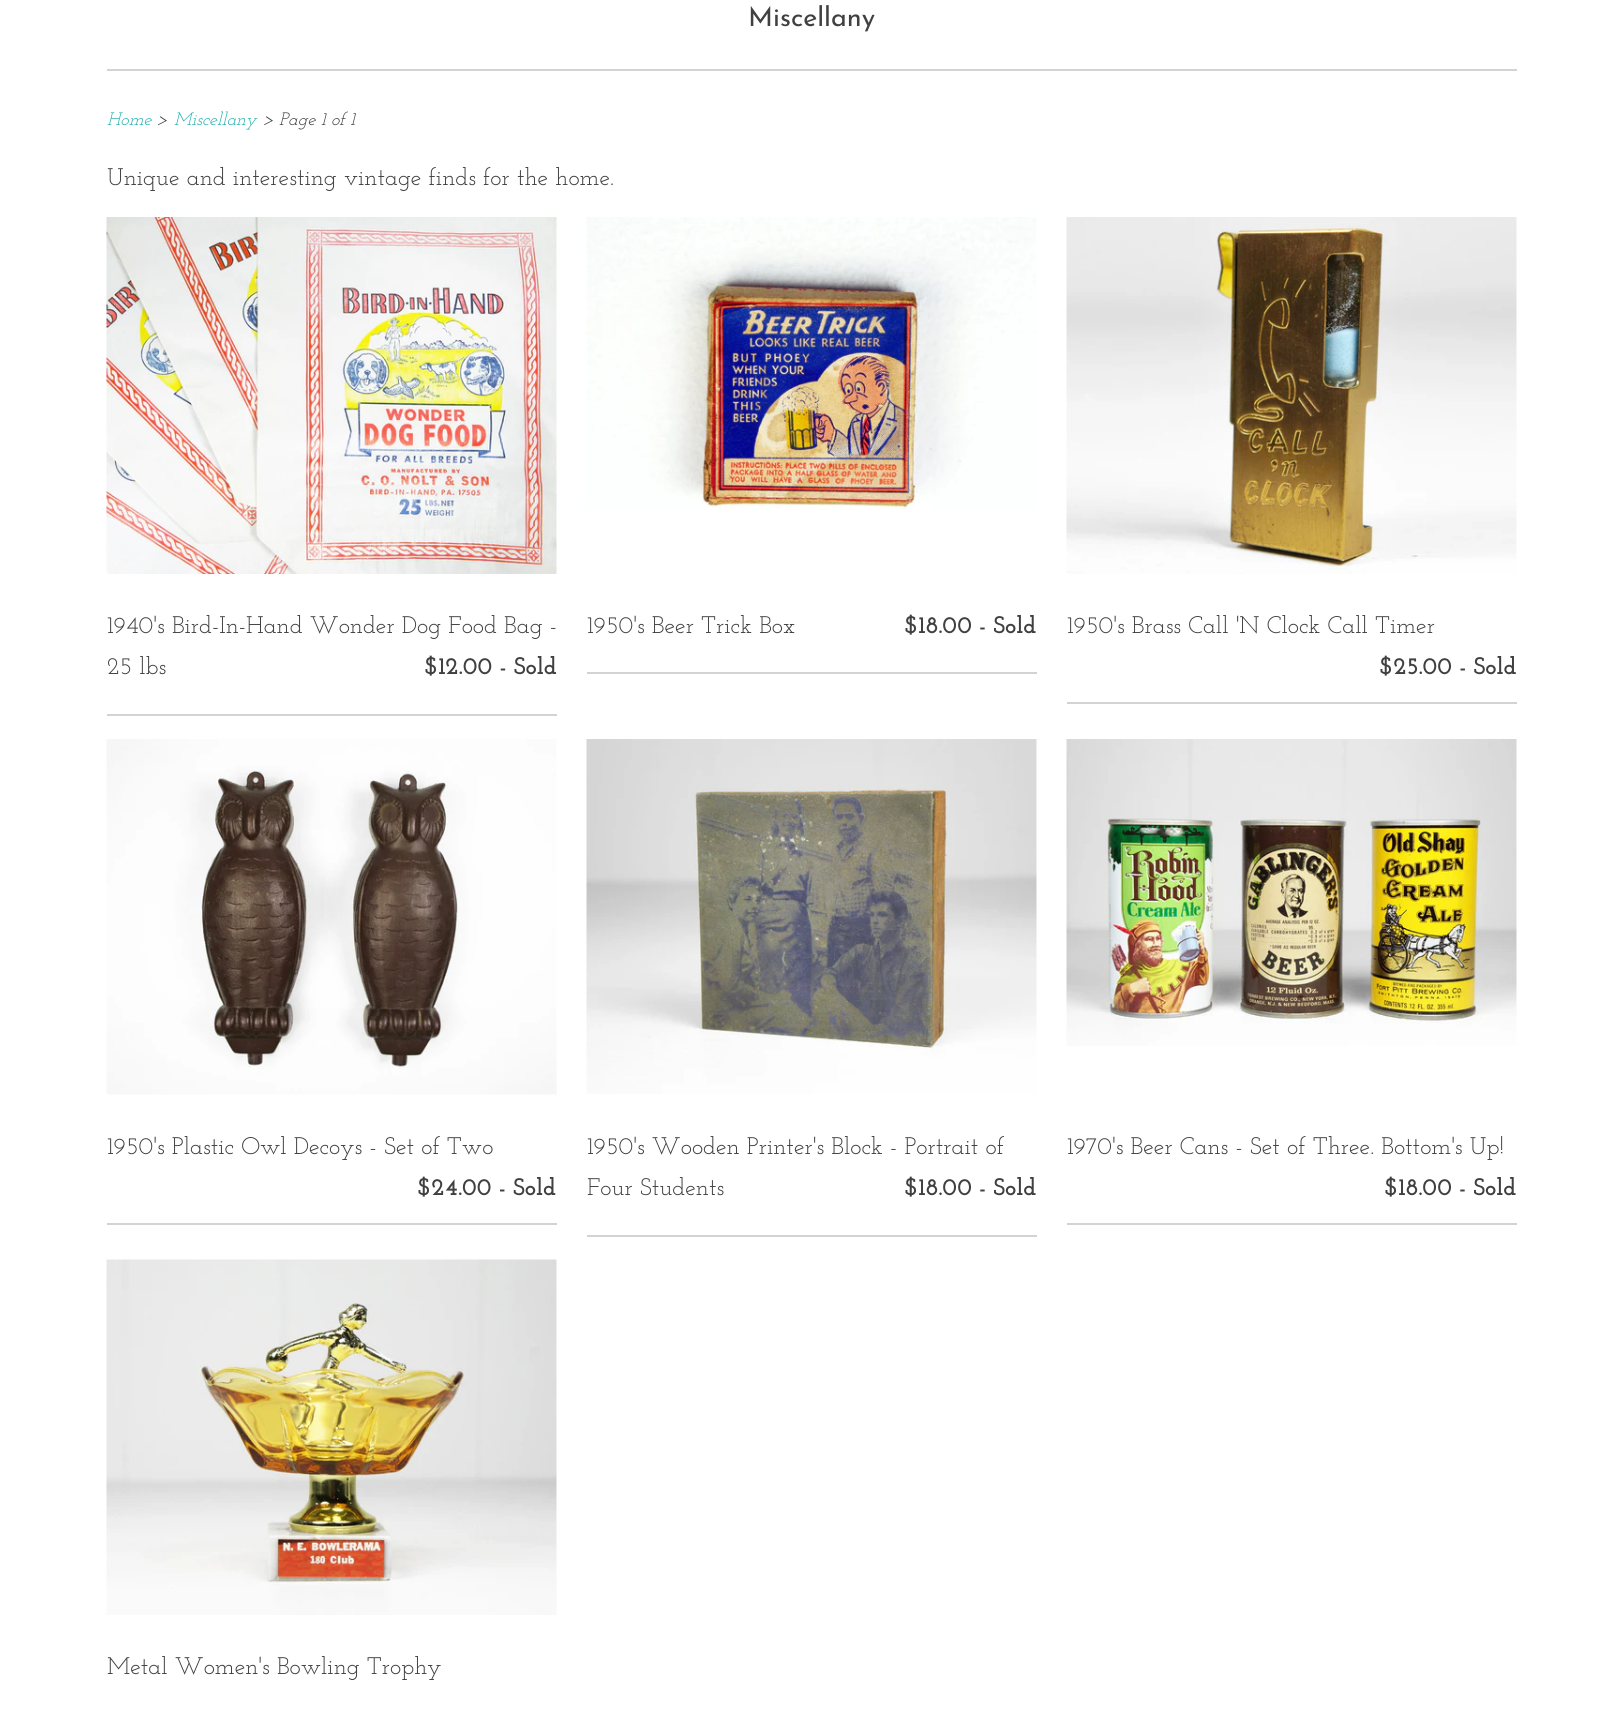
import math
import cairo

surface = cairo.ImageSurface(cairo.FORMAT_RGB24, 1623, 1709)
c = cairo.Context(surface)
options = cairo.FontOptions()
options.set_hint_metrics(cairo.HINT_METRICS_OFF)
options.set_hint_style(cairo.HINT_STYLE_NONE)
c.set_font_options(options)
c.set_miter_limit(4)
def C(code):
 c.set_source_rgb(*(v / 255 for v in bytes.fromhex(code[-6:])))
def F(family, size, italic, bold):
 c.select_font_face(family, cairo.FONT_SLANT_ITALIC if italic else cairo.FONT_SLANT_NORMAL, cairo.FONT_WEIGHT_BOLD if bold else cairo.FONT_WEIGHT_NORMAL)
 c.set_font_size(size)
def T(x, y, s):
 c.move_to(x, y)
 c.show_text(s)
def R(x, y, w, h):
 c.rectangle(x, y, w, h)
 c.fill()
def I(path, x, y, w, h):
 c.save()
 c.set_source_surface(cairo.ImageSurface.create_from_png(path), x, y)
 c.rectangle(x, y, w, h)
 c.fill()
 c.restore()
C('ffffff')
c.paint()
C('d3d3d3')
R(107,69,1410,2)
F('Josefin Sans',27,0,0)
C('404040')
T(748,26,'Miscellany')
F('Josefin Slab',18,1,0)
C('27b0b0')
T(107,125,'Home')
C('404040')
T(156,125,'>')
C('27b0b0')
T(174,125,'Miscellany')
C('404040')
T(262,125,'> Page 1 of 1')
F('Josefin Slab',24,0,0)
T(107,185,'Unique and interesting vintage finds for the home.')
C('d3d3d3')
R(107,714,450,2)
I('1.png',106,217,451,357)
C('404040')
T(107,633,'1940\'s Bird-In-Hand Wonder Dog Food Bag -')
T(107,674,'25 lbs')
F('Josefin Slab',24,0,1)
T(425,674,'$12.00 - Sold')
C('d3d3d3')
R(587,672,450,2)
I('2.png',586,217,451,293)
F('Josefin Slab',24,0,0)
C('404040')
T(587,633,'1950\'s Beer Trick Box')
F('Josefin Slab',24,0,1)
T(905,633,'$18.00 - Sold')
C('d3d3d3')
R(1067,702,450,2)
I('3.png',1066,217,451,357)
F('Josefin Slab',24,0,0)
C('404040')
T(1067,633,'1950\'s Brass Call \'N Clock Call Timer')
F('Josefin Slab',24,0,1)
T(1380,674,'$25.00 - Sold')
C('d3d3d3')
R(107,1223,450,2)
I('4.png',106,739,451,356)
F('Josefin Slab',24,0,0)
C('404040')
T(107,1154,'1950\'s Plastic Owl Decoys - Set of Two')
F('Josefin Slab',24,0,1)
T(418,1195,'$24.00 - Sold')
C('d3d3d3')
R(587,1235,450,2)
I('5.png',586,739,451,355)
F('Josefin Slab',24,0,0)
C('404040')
T(587,1154,'1950\'s Wooden Printer\'s Block - Portrait of')
T(587,1195,'Four Students')
F('Josefin Slab',24,0,1)
T(905,1195,'$18.00 - Sold')
C('d3d3d3')
R(1067,1223,450,2)
I('6.png',1066,739,451,307)
F('Josefin Slab',24,0,0)
C('404040')
T(1067,1154,'1970\'s Beer Cans - Set of Three. Bottom\'s Up!')
F('Josefin Slab',24,0,1)
T(1385,1195,'$18.00 - Sold')
I('7.png',106,1259,451,356)
F('Josefin Slab',24,0,0)
T(107,1674,'Metal Women\'s Bowling Trophy')
surface.write_to_png('o.png')
